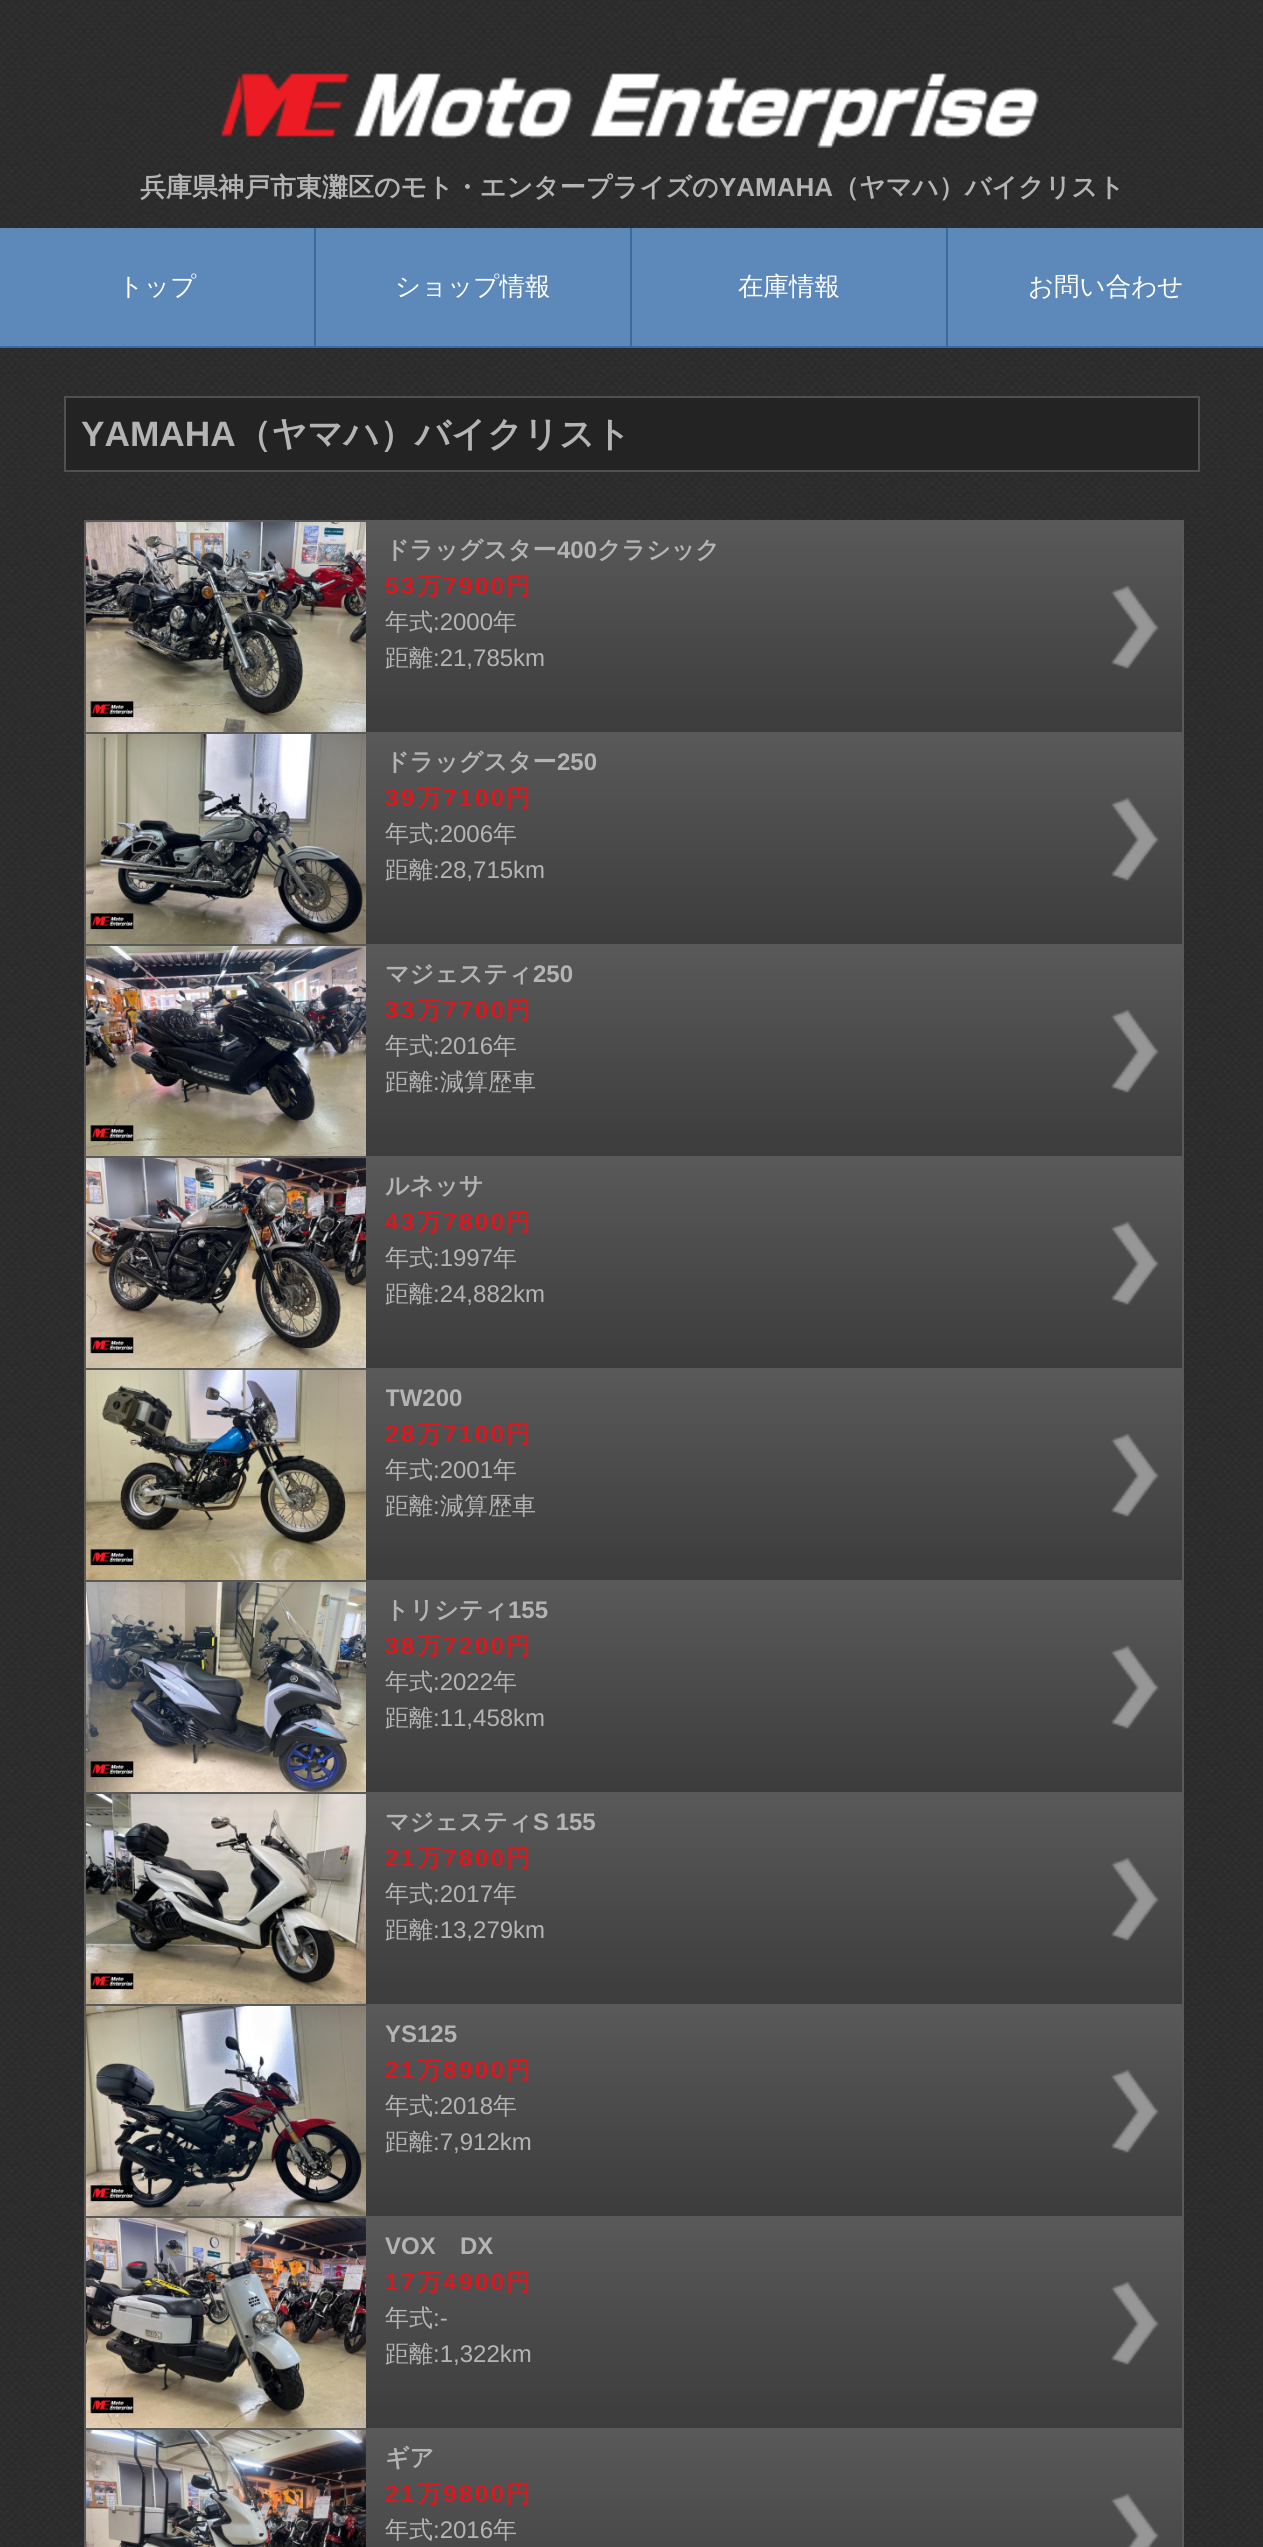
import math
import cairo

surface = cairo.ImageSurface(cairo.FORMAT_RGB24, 1263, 2547)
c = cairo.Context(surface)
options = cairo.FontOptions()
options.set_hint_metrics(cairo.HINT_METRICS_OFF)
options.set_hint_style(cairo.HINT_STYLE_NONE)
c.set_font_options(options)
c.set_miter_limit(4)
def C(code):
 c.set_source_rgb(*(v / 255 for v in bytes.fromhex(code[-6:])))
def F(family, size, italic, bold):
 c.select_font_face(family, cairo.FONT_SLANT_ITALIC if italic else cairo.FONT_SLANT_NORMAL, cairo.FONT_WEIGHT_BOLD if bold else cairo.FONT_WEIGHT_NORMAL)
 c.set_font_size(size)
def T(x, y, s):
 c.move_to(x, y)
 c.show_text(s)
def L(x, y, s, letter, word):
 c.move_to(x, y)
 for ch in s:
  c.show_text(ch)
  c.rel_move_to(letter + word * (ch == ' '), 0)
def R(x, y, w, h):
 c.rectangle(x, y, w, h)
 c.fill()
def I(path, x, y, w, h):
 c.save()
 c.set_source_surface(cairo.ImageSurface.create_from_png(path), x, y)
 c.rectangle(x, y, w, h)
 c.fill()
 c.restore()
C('ffffff')
c.paint()
I('1.png',0,0,1263,2547)
I('2.png',220,73,819,75)
F('WenQuanYi Zen Hei',26,0,1)
C('b4b4b4')
T(140,196,'兵庫県神戸市東灘区のモト・エンタープライズの')
F('Liberation Sans',26,0,1)
T(719,196,'YAMAHA')
F('WenQuanYi Zen Hei',26,0,1)
T(833,196,'（ヤマハ）バイクリスト')
C('396ba0')
R(0,346,1263,2)
C('5c89b9')
R(0,228,314,118)
C('396ba0')
R(314,228,2,118)
F('WenQuanYi Zen Hei Medium',25.5,0,0)
C('ffffff')
T(118,295,'トップ')
C('5c89b9')
R(316,228,314,118)
C('396ba0')
R(630,228,2,118)
C('ffffff')
T(395,295,'ショップ情報')
C('5c89b9')
R(632,228,314,118)
C('396ba0')
R(946,228,2,118)
C('ffffff')
T(738,295,'在庫情報')
C('5c89b9')
R(948,228,315,118)
C('ffffff')
T(1028,295,'お問い合わせ')
C('232323')
c.rectangle(65,397,1134,74)
c.fill_preserve()
C('505050')
c.stroke()
F('Liberation Sans',35.25,0,1)
C('b4b4b4')
T(81,446,'YAMAHA')
F('WenQuanYi Zen Hei',35.25,0,1)
T(236,446,'（ヤマハ）バイクリスト')
gradient = cairo.LinearGradient(634,522,634,732)
gradient.add_color_stop_rgba(0,0.349,0.349,0.349,1)
gradient.add_color_stop_rgba(1,0.235,0.235,0.235,1)
c.set_source(gradient)
R(366,522,816,210)
C('595959')
R(84,520,1100,2)
R(1182,520,2,212)
R(84,520,2,212)
I('3.png',1111,585,48,84)
I('4.png',86,522,280,210)
F('WenQuanYi Zen Hei',24,0,1)
C('b4b4b4')
T(385,558,'ドラッグスター')
F('Liberation Sans',24,0,1)
T(557,558,'400')
F('WenQuanYi Zen Hei',24,0,1)
T(597,558,'クラシック')
F('Liberation Sans',24,0,1)
C('d71920')
L(385,594,'53',2.5,0)
F('WenQuanYi Zen Hei',24,0,1)
L(417,594,'万',2.5,0)
F('Liberation Sans',24,0,1)
L(443,594,'7900',2.5,0)
F('WenQuanYi Zen Hei',24,0,1)
L(506,594,'円',2.5,0)
F('WenQuanYi Zen Hei Medium',24,0,0)
C('b4b4b4')
T(385,630,'年式')
F('Liberation Sans',24,0,0)
T(433,630,':2000')
F('WenQuanYi Zen Hei Medium',24,0,0)
T(493,630,'年')
T(385,666,'距離')
F('Liberation Sans',24,0,0)
T(433,666,':21,785km')
gradient = cairo.LinearGradient(634,734,634,944)
gradient.add_color_stop_rgba(0,0.349,0.349,0.349,1)
gradient.add_color_stop_rgba(1,0.235,0.235,0.235,1)
c.set_source(gradient)
R(366,734,816,210)
C('595959')
R(84,732,1100,2)
R(1182,732,2,212)
R(84,732,2,212)
I('3.png',1111,797,48,84)
I('5.png',86,734,280,210)
F('WenQuanYi Zen Hei',24,0,1)
C('b4b4b4')
T(385,770,'ドラッグスター')
F('Liberation Sans',24,0,1)
T(557,770,'250')
C('d71920')
L(385,806,'39',2.5,0)
F('WenQuanYi Zen Hei',24,0,1)
L(417,806,'万',2.5,0)
F('Liberation Sans',24,0,1)
L(443,806,'7100',2.5,0)
F('WenQuanYi Zen Hei',24,0,1)
L(506,806,'円',2.5,0)
F('WenQuanYi Zen Hei Medium',24,0,0)
C('b4b4b4')
T(385,842,'年式')
F('Liberation Sans',24,0,0)
T(433,842,':2006')
F('WenQuanYi Zen Hei Medium',24,0,0)
T(493,842,'年')
T(385,878,'距離')
F('Liberation Sans',24,0,0)
T(433,878,':28,715km')
gradient = cairo.LinearGradient(634,946,634,1156)
gradient.add_color_stop_rgba(0,0.349,0.349,0.349,1)
gradient.add_color_stop_rgba(1,0.235,0.235,0.235,1)
c.set_source(gradient)
R(366,946,816,210)
C('595959')
R(84,944,1100,2)
R(1182,944,2,212)
R(84,944,2,212)
I('3.png',1111,1009,48,84)
I('6.png',86,946,280,210)
F('WenQuanYi Zen Hei',24,0,1)
C('b4b4b4')
T(385,982,'マジェスティ')
F('Liberation Sans',24,0,1)
T(533,982,'250')
C('d71920')
L(385,1018,'33',2.5,0)
F('WenQuanYi Zen Hei',24,0,1)
L(417,1018,'万',2.5,0)
F('Liberation Sans',24,0,1)
L(443,1018,'7700',2.5,0)
F('WenQuanYi Zen Hei',24,0,1)
L(506,1018,'円',2.5,0)
F('WenQuanYi Zen Hei Medium',24,0,0)
C('b4b4b4')
T(385,1054,'年式')
F('Liberation Sans',24,0,0)
T(433,1054,':2016')
F('WenQuanYi Zen Hei Medium',24,0,0)
T(493,1054,'年')
T(385,1090,'距離')
F('Liberation Sans',24,0,0)
T(433,1090,':')
F('WenQuanYi Zen Hei Medium',24,0,0)
T(440,1090,'減算歴車')
gradient = cairo.LinearGradient(634,1158,634,1368)
gradient.add_color_stop_rgba(0,0.349,0.349,0.349,1)
gradient.add_color_stop_rgba(1,0.235,0.235,0.235,1)
c.set_source(gradient)
R(366,1158,816,210)
C('595959')
R(84,1156,1100,2)
R(1182,1156,2,212)
R(84,1156,2,212)
I('3.png',1111,1221,48,84)
I('7.png',86,1158,280,210)
F('WenQuanYi Zen Hei',24,0,1)
C('b4b4b4')
T(385,1194,'ルネッサ')
F('Liberation Sans',24,0,1)
C('d71920')
L(385,1230,'43',2.5,0)
F('WenQuanYi Zen Hei',24,0,1)
L(417,1230,'万',2.5,0)
F('Liberation Sans',24,0,1)
L(443,1230,'7800',2.5,0)
F('WenQuanYi Zen Hei',24,0,1)
L(506,1230,'円',2.5,0)
F('WenQuanYi Zen Hei Medium',24,0,0)
C('b4b4b4')
T(385,1266,'年式')
F('Liberation Sans',24,0,0)
T(433,1266,':1997')
F('WenQuanYi Zen Hei Medium',24,0,0)
T(493,1266,'年')
T(385,1302,'距離')
F('Liberation Sans',24,0,0)
T(433,1302,':24,882km')
gradient = cairo.LinearGradient(634,1370,634,1580)
gradient.add_color_stop_rgba(0,0.349,0.349,0.349,1)
gradient.add_color_stop_rgba(1,0.235,0.235,0.235,1)
c.set_source(gradient)
R(366,1370,816,210)
C('595959')
R(84,1368,1100,2)
R(1182,1368,2,212)
R(84,1368,2,212)
I('3.png',1111,1433,48,84)
I('8.png',86,1370,280,210)
c.save()
c.rectangle(386,1370,756,46)
c.clip()
F('Liberation Sans',24,0,1)
C('b4b4b4')
T(385,1406,'TW200')
c.restore()
F('Liberation Sans',24,0,1)
C('d71920')
L(385,1442,'28',2.5,0)
F('WenQuanYi Zen Hei',24,0,1)
L(417,1442,'万',2.5,0)
F('Liberation Sans',24,0,1)
L(443,1442,'7100',2.5,0)
F('WenQuanYi Zen Hei',24,0,1)
L(506,1442,'円',2.5,0)
F('WenQuanYi Zen Hei Medium',24,0,0)
C('b4b4b4')
T(385,1478,'年式')
F('Liberation Sans',24,0,0)
T(433,1478,':2001')
F('WenQuanYi Zen Hei Medium',24,0,0)
T(493,1478,'年')
T(385,1514,'距離')
F('Liberation Sans',24,0,0)
T(433,1514,':')
F('WenQuanYi Zen Hei Medium',24,0,0)
T(440,1514,'減算歴車')
gradient = cairo.LinearGradient(634,1582,634,1792)
gradient.add_color_stop_rgba(0,0.349,0.349,0.349,1)
gradient.add_color_stop_rgba(1,0.235,0.235,0.235,1)
c.set_source(gradient)
R(366,1582,816,210)
C('595959')
R(84,1580,1100,2)
R(1182,1580,2,212)
R(84,1580,2,212)
I('3.png',1111,1645,48,84)
I('9.png',86,1582,280,210)
F('WenQuanYi Zen Hei',24,0,1)
C('b4b4b4')
T(385,1618,'トリシティ')
F('Liberation Sans',24,0,1)
T(508,1618,'155')
C('d71920')
L(385,1654,'38',2.5,0)
F('WenQuanYi Zen Hei',24,0,1)
L(417,1654,'万',2.5,0)
F('Liberation Sans',24,0,1)
L(443,1654,'7200',2.5,0)
F('WenQuanYi Zen Hei',24,0,1)
L(506,1654,'円',2.5,0)
F('WenQuanYi Zen Hei Medium',24,0,0)
C('b4b4b4')
T(385,1690,'年式')
F('Liberation Sans',24,0,0)
T(433,1690,':2022')
F('WenQuanYi Zen Hei Medium',24,0,0)
T(493,1690,'年')
T(385,1726,'距離')
F('Liberation Sans',24,0,0)
T(433,1726,':11,458km')
gradient = cairo.LinearGradient(634,1794,634,2004)
gradient.add_color_stop_rgba(0,0.349,0.349,0.349,1)
gradient.add_color_stop_rgba(1,0.235,0.235,0.235,1)
c.set_source(gradient)
R(366,1794,816,210)
C('595959')
R(84,1792,1100,2)
R(1182,1792,2,212)
R(84,1792,2,212)
I('3.png',1111,1857,48,84)
I('10.png',86,1794,280,210)
F('WenQuanYi Zen Hei',24,0,1)
C('b4b4b4')
T(385,1830,'マジェスティ')
F('Liberation Sans',24,0,1)
T(533,1830,'S 155')
C('d71920')
L(385,1866,'21',2.5,0)
F('WenQuanYi Zen Hei',24,0,1)
L(417,1866,'万',2.5,0)
F('Liberation Sans',24,0,1)
L(443,1866,'7800',2.5,0)
F('WenQuanYi Zen Hei',24,0,1)
L(506,1866,'円',2.5,0)
F('WenQuanYi Zen Hei Medium',24,0,0)
C('b4b4b4')
T(385,1902,'年式')
F('Liberation Sans',24,0,0)
T(433,1902,':2017')
F('WenQuanYi Zen Hei Medium',24,0,0)
T(493,1902,'年')
T(385,1938,'距離')
F('Liberation Sans',24,0,0)
T(433,1938,':13,279km')
gradient = cairo.LinearGradient(634,2006,634,2216)
gradient.add_color_stop_rgba(0,0.349,0.349,0.349,1)
gradient.add_color_stop_rgba(1,0.235,0.235,0.235,1)
c.set_source(gradient)
R(366,2006,816,210)
C('595959')
R(84,2004,1100,2)
R(1182,2004,2,212)
R(84,2004,2,212)
I('3.png',1111,2069,48,84)
I('11.png',86,2006,280,210)
F('Liberation Sans',24,0,1)
C('b4b4b4')
T(385,2042,'YS125')
C('d71920')
L(385,2078,'21',2.5,0)
F('WenQuanYi Zen Hei',24,0,1)
L(417,2078,'万',2.5,0)
F('Liberation Sans',24,0,1)
L(443,2078,'8900',2.5,0)
F('WenQuanYi Zen Hei',24,0,1)
L(506,2078,'円',2.5,0)
F('WenQuanYi Zen Hei Medium',24,0,0)
C('b4b4b4')
T(385,2114,'年式')
F('Liberation Sans',24,0,0)
T(433,2114,':2018')
F('WenQuanYi Zen Hei Medium',24,0,0)
T(493,2114,'年')
T(385,2150,'距離')
F('Liberation Sans',24,0,0)
T(433,2150,':7,912km')
gradient = cairo.LinearGradient(634,2218,634,2428)
gradient.add_color_stop_rgba(0,0.349,0.349,0.349,1)
gradient.add_color_stop_rgba(1,0.235,0.235,0.235,1)
c.set_source(gradient)
R(366,2218,816,210)
C('595959')
R(84,2216,1100,2)
R(1182,2216,2,212)
R(84,2216,2,212)
I('3.png',1111,2281,48,84)
I('12.png',86,2218,280,210)
F('Liberation Sans',24,0,1)
C('b4b4b4')
T(385,2254,'VOX')
T(460,2254,'DX')
C('d71920')
L(385,2290,'17',2.5,0)
F('WenQuanYi Zen Hei',24,0,1)
L(417,2290,'万',2.5,0)
F('Liberation Sans',24,0,1)
L(443,2290,'4900',2.5,0)
F('WenQuanYi Zen Hei',24,0,1)
L(506,2290,'円',2.5,0)
F('WenQuanYi Zen Hei Medium',24,0,0)
C('b4b4b4')
T(385,2326,'年式')
F('Liberation Sans',24,0,0)
T(433,2326,':-')
F('WenQuanYi Zen Hei Medium',24,0,0)
T(385,2362,'距離')
F('Liberation Sans',24,0,0)
T(433,2362,':1,322km')
gradient = cairo.LinearGradient(634,2430,634,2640)
gradient.add_color_stop_rgba(0,0.349,0.349,0.349,1)
gradient.add_color_stop_rgba(1,0.235,0.235,0.235,1)
c.set_source(gradient)
R(366,2430,816,117)
C('595959')
R(84,2428,1100,2)
R(1182,2428,2,119)
R(84,2428,2,119)
I('13.png',1111,2493,48,54)
I('14.png',86,2430,280,117)
F('WenQuanYi Zen Hei',24,0,1)
C('b4b4b4')
T(385,2466,'ギア')
F('Liberation Sans',24,0,1)
C('d71920')
L(385,2502,'21',2.5,0)
F('WenQuanYi Zen Hei',24,0,1)
L(417,2502,'万',2.5,0)
F('Liberation Sans',24,0,1)
L(443,2502,'9800',2.5,0)
F('WenQuanYi Zen Hei',24,0,1)
L(506,2502,'円',2.5,0)
F('WenQuanYi Zen Hei Medium',24,0,0)
C('b4b4b4')
T(385,2538,'年式')
F('Liberation Sans',24,0,0)
T(433,2538,':2016')
F('WenQuanYi Zen Hei Medium',24,0,0)
T(493,2538,'年')
surface.write_to_png('o.png')
